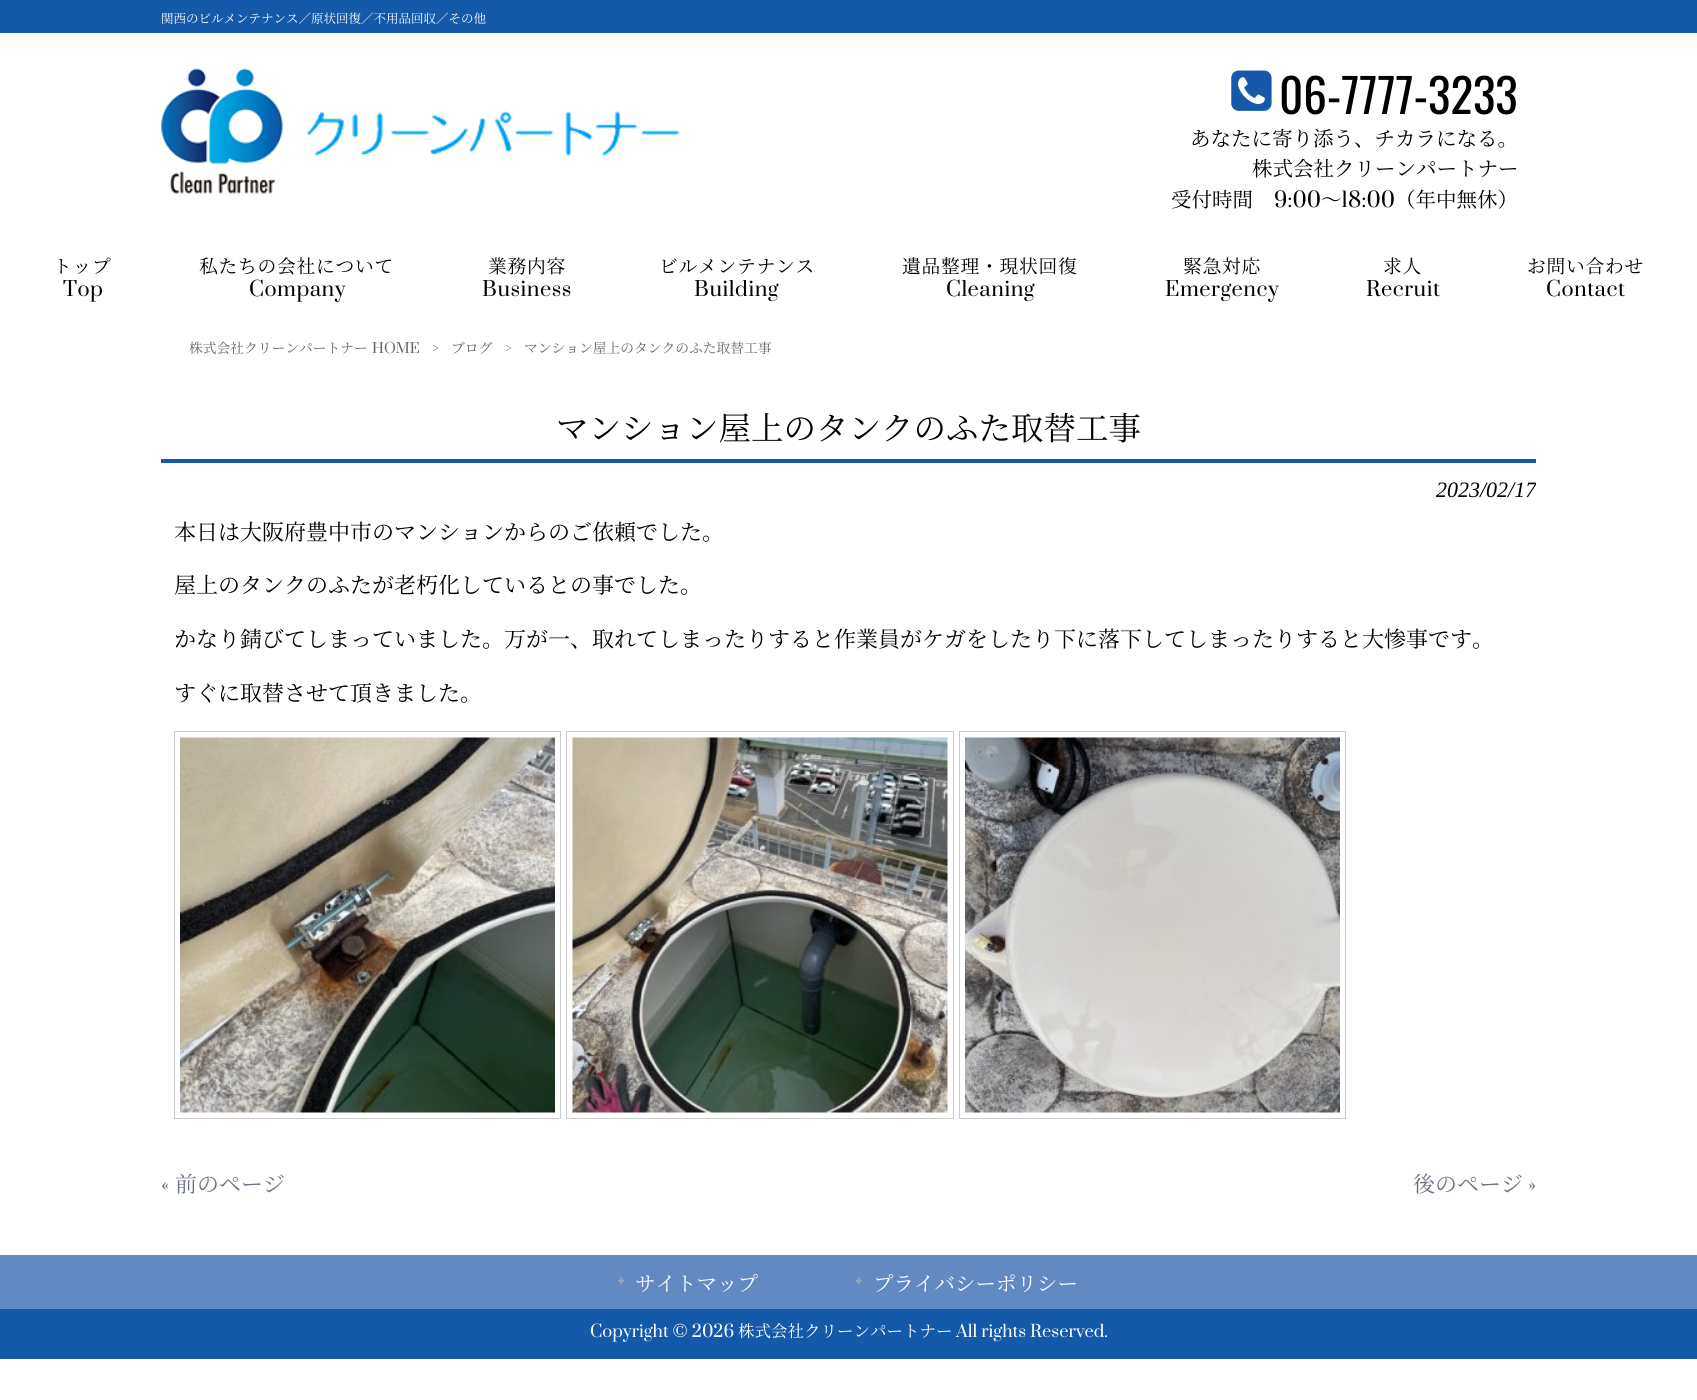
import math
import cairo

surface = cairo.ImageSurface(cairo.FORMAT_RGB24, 1697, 1400)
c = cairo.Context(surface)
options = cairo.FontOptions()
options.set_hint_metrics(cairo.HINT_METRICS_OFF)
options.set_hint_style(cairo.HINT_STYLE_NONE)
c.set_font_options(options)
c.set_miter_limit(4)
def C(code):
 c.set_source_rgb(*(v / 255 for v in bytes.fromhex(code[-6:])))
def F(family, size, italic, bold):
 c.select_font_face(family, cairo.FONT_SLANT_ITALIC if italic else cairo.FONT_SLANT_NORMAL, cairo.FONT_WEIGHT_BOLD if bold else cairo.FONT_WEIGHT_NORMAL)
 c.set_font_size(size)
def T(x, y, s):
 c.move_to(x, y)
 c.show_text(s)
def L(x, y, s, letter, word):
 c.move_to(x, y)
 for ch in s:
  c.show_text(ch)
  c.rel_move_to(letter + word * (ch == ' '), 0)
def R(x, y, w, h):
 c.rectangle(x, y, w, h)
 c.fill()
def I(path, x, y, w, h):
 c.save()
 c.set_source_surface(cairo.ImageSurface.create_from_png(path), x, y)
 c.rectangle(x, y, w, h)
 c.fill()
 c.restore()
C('ffffff')
c.paint()
C('1559aa')
R(0,0,1697,33)
F('Noto Serif JP ExtraLight',12.5,0,0)
C('ffffff')
T(161,23,'関西のビルメンテナンス／原状回復／不用品回収／その他')
I('1.png',161,68,519,126)
I('2.png',1231,70,41,41)
F('Oswald',47,0,0)
C('000000')
T(1279,114,'06-7777-3233')
F('Noto Serif JP ExtraLight',20.5,0,0)
T(1190,146,'あなたに寄り添う、チカラになる。')
T(1252,176,'株式会社クリーンパートナー')
T(1171,207,'受付時間')
F('Prata',20.5,0,0)
T(1274,207,'9:00')
F('Noto Serif JP ExtraLight',20.5,0,0)
T(1321,207,'～')
F('Prata',20.5,0,0)
T(1341,207,'18:00')
F('Noto Serif JP ExtraLight',20.5,0,0)
T(1395,207,'（年中無休）')
F('Noto Serif JP ExtraLight',18.75,0,0)
L(53,273,'トップ',.75,0)
F('Prata',20,0,0)
L(63,296,'Top',.5,0)
F('Noto Serif JP ExtraLight',18.75,0,0)
L(199,273,'私たちの会社について',.75,0)
F('Prata',20,0,0)
L(249,296,'Company',.5,0)
F('Noto Serif JP ExtraLight',18.75,0,0)
L(488,273,'業務内容',.75,0)
F('Prata',20,0,0)
L(482,296,'Business',.5,0)
F('Noto Serif JP ExtraLight',18.75,0,0)
L(659,273,'ビルメンテナンス',.75,0)
F('Prata',20,0,0)
L(694,296,'Building',.5,0)
F('Noto Serif JP ExtraLight',18.75,0,0)
L(902,273,'遺品整理・現状回復',.75,0)
F('Prata',20,0,0)
L(946,296,'Cleaning',.5,0)
F('Noto Serif JP ExtraLight',18.75,0,0)
L(1183,273,'緊急対応',.75,0)
F('Prata',20,0,0)
L(1165,296,'Emergency',.5,0)
F('Noto Serif JP ExtraLight',18.75,0,0)
L(1383,273,'求人',.75,0)
F('Prata',20,0,0)
L(1366,296,'Recruit',.5,0)
F('Noto Serif JP ExtraLight',18.75,0,0)
L(1527,273,'お問い合わせ',.75,0)
F('Prata',20,0,0)
L(1546,296,'Contact',.5,0)
F('Noto Serif JP ExtraLight',13.75,0,0)
C('666666')
T(189,353,'株式会社クリーンパートナー')
F('Prata',13.75,0,0)
T(372,353,'HOME')
T(432,353,'>')
F('Noto Serif JP ExtraLight',13.75,0,0)
T(451,353,'ブログ')
F('Prata',13.75,0,0)
T(505,353,'>')
F('Noto Serif JP ExtraLight',13.75,0,0)
T(524,353,'マンション屋上のタンクのふた取替工事')
F('Noto Serif JP ExtraLight',32.5,0,0)
C('000000')
T(556,440,'マンション屋上のタンクのふた取替工事')
C('1559aa')
R(161,459,1375,4)
c.save()
c.rectangle(161,376,1375,879)
c.clip()
F('Liberation Serif',22,1,0)
C('000000')
T(1436,497,'2023/02/17')
c.restore()
F('Noto Serif JP ExtraLight',22,0,0)
C('000000')
T(174,540,'本日は大阪府豊中市のマンションからのご依頼でした。')
T(174,593,'屋上のタンクのふたが老朽化しているとの事でした。')
T(174,647,'かなり錆びてしまっていました。万が一、取れてしまったりすると作業員がケガをしたり下に落下してしまったりすると大惨事です。')
T(174,701,'すぐに取替させて頂きました。')
c.rectangle(174.5,731.5,386,387)
C('cccccc')
c.set_line_width(1)
c.stroke()
c.rectangle(566.5,731.5,387,387)
c.stroke()
c.rectangle(959.5,731.5,386,387)
c.stroke()
I('3.png',180,737,375,376)
I('4.png',572,737,376,376)
I('5.png',965,737,375,376)
F('Prata',22,0,0)
C('6a7181')
T(161,1192,'«')
F('Noto Serif JP ExtraLight',22,0,0)
T(175,1192,'前のページ')
T(1413,1192,'後のページ')
F('Prata',22,0,0)
T(1528,1192,'»')
C('628ac2')
R(0,1255,1697,54)
I('6.png',618,1277,6,7)
F('Noto Serif JP ExtraLight',20.5,0,0)
C('ffffff')
T(635,1291,'サイトマップ')
I('7.png',856,1277,6,7)
T(873,1291,'プライバシーポリシー')
C('1559aa')
R(0,1309,1697,50)
F('Prata',16.5,0,0)
C('ffffff')
T(590,1337,'Copyright © 2026')
F('Noto Serif JP ExtraLight',16.5,0,0)
T(738,1337,'株式会社クリーンパートナー')
F('Prata',16.5,0,0)
T(956,1337,'All rights Reserved.')
surface.write_to_png('o.png')
